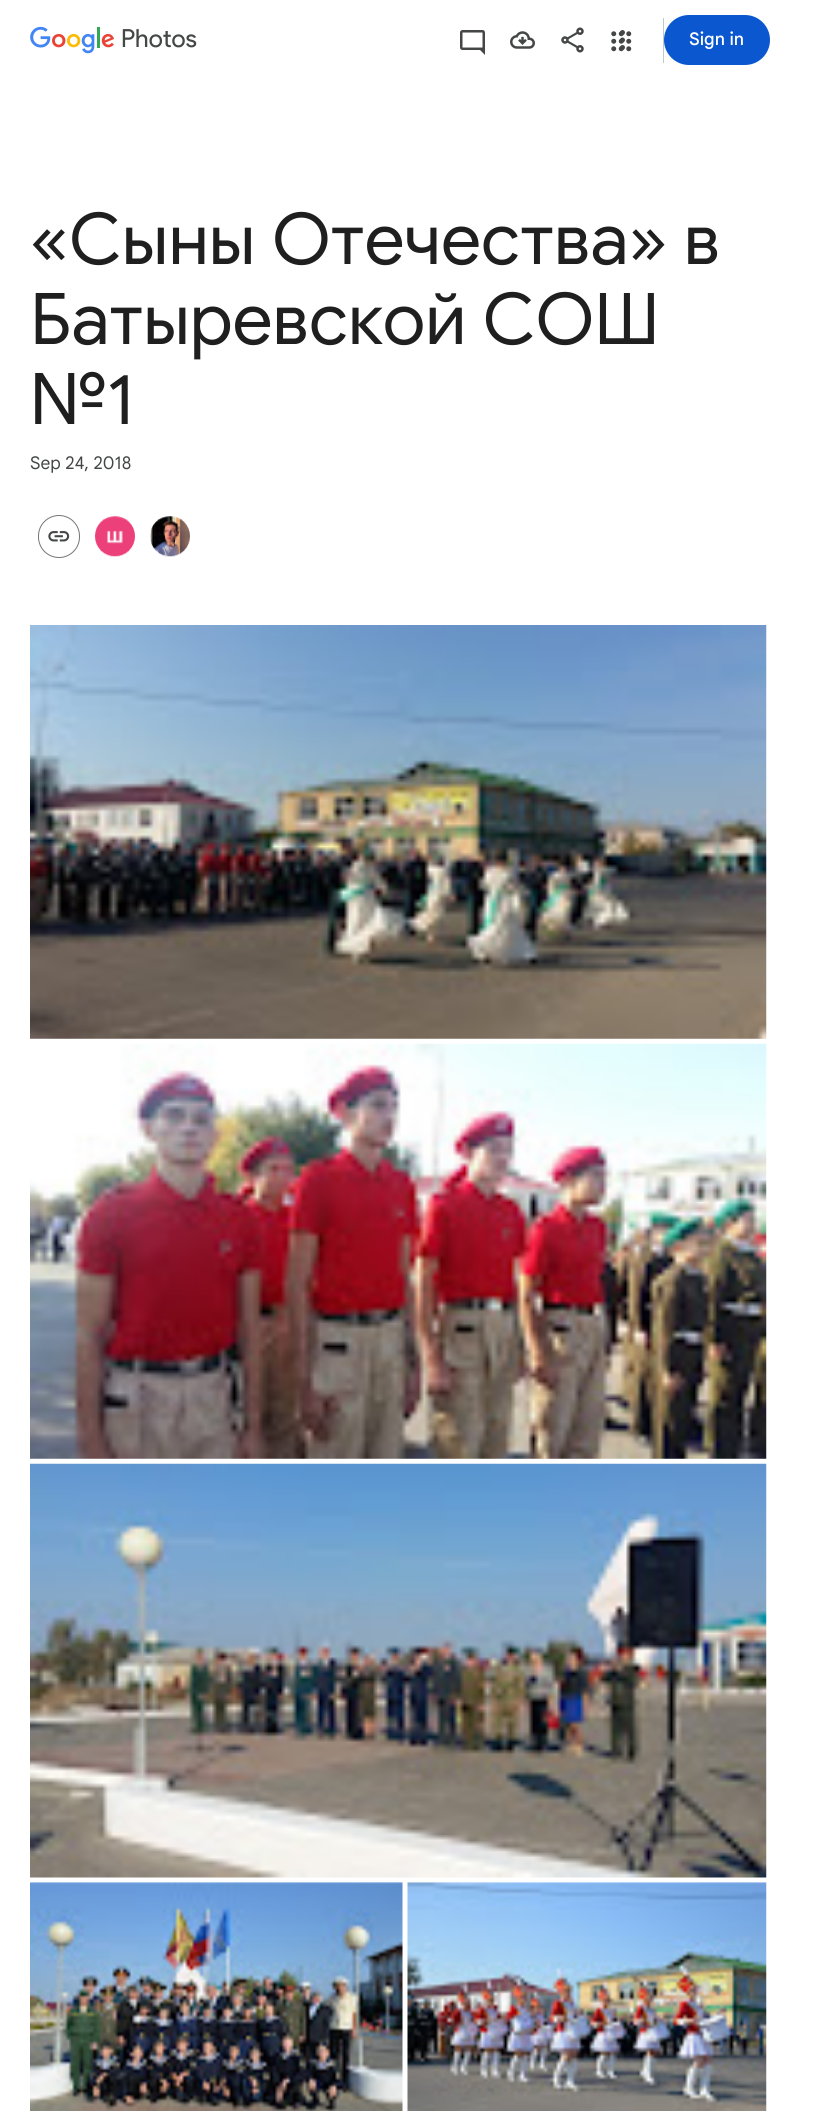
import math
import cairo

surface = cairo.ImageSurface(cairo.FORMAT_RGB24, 814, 2111)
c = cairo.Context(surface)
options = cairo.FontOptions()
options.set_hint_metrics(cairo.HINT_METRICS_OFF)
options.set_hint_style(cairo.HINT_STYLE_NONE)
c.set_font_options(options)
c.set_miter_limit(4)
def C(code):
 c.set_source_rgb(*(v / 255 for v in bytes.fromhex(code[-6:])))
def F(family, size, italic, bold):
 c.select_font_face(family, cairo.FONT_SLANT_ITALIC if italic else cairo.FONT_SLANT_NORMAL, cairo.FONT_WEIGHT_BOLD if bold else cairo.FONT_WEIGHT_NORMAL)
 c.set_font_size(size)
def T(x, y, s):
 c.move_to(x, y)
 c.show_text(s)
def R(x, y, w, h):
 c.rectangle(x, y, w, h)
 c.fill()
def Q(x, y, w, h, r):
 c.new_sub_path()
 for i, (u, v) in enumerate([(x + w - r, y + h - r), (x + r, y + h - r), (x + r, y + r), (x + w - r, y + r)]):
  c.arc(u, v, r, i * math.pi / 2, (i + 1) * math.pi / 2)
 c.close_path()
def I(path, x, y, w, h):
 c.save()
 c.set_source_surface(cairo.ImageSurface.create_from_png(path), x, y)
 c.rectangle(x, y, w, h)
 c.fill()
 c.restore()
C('ffffff')
c.paint()
I('1.png',30,26,84,28)
F('Product Sans',25,0,0)
C('444746')
T(121,47,'Photos')
I('2.png',460,30,25,25)
I('3.png',510,31,25,18)
I('4.png',561,27,23,26)
I('5.png',620,30,5,20)
C('c4c7c5')
R(663,18,1,45)
F('Google Sans',71.25,0,0)
C('1f1f1f')
T(30,264,'«Сыны Отечества» в')
T(30,344,'Батыревской СОШ')
T(30,424,'№1')
F('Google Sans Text',17.5,0,0)
C('444746')
T(30,469,'Sep 24, 2018')
Q(38.5,515.5,41,42,20.5)
C('747775')
c.set_line_width(1)
c.stroke()
I('6.png',48,531,22,11)
I('7.png',95,516,40,41)
I('8.png',150,516,40,41)
I('9.png',30,625,737,414)
I('10.png',30,1043,737,416)
I('11.png',30,1463,737,415)
I('12.png',30,1882,373,229)
I('13.png',407,1882,360,229)
I('14.png',611,31,21,21)
C('0b57d0')
Q(664,15,106,50,25)
c.fill()
F('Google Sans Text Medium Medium',17.5,0,0)
C('ffffff')
T(689,45,'Sign in')
surface.write_to_png('o.png')
